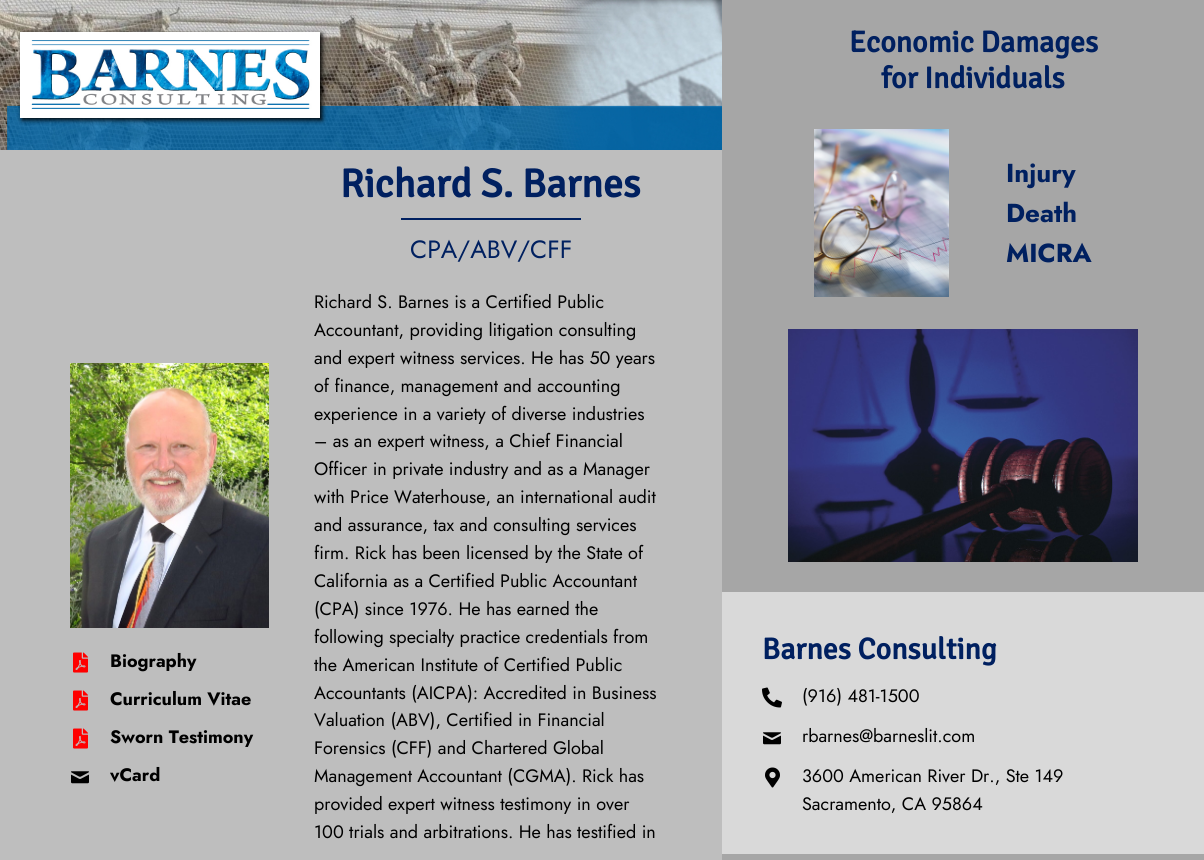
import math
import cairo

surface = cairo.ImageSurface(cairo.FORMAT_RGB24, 1204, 860)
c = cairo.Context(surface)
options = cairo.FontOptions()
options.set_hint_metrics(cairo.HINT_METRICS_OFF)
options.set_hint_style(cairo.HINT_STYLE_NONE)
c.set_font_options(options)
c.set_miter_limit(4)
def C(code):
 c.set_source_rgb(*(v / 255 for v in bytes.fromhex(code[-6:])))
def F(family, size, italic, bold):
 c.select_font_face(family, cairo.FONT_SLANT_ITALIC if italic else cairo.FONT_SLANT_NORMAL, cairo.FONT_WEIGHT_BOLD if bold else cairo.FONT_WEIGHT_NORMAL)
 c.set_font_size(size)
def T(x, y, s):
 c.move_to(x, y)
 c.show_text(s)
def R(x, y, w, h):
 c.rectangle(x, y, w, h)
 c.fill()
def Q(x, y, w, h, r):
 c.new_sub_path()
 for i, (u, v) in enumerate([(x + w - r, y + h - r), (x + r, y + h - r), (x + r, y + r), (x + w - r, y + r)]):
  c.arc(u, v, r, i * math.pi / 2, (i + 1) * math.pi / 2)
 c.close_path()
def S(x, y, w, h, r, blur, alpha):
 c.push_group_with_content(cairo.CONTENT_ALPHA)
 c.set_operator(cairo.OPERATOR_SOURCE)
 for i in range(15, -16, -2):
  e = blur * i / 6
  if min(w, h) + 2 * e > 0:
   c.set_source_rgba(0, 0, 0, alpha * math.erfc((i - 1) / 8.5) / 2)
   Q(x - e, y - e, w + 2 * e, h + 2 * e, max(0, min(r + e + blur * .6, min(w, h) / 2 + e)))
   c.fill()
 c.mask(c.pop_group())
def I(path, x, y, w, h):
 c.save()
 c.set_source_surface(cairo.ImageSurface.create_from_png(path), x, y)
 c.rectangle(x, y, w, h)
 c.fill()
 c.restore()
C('bebebe')
c.paint()
I('1.png',0,0,722,150)
C('000000')
S(22,34,300,86,0,2.5,1)
I('2.png',20,32,300,86)
I('3.png',70,363,199,265)
I('4.png',73,652,15,21)
F('Jost',18,0,1)
C('000000')
T(110,667,'Biography')
I('4.png',73,690,15,21)
T(110,705,'Curriculum Vitae')
I('4.png',73,728,15,21)
T(110,743,'Sworn Testimony')
I('5.png',71,771,18,13)
T(110,781,'vCard')
F('Signika',40,0,1)
C('002060')
T(340,197,'Richard S. Barnes')
R(401,218,180,2)
F('Jost',25,0,0)
T(410,258,'CPA/ABV/CFF')
F('Jost',18,0,0)
C('000000')
T(314,308,'Richard S. Barnes is a Certified Public')
T(314,336,'Accountant, providing litigation consulting')
T(314,364,'and expert witness services. He has 50 years')
T(314,392,'of finance, management and accounting')
T(314,420,'experience in a variety of diverse industries')
T(314,447,'– as an expert witness, a Chief Financial')
T(314,475,'Officer in private industry and as a Manager')
T(314,503,'with Price Waterhouse, an international audit')
T(314,531,'and assurance, tax and consulting services')
T(314,559,'firm. Rick has been licensed by the State of')
T(314,587,'California as a Certified Public Accountant')
T(314,615,'(CPA) since 1976. He has earned the')
T(314,643,'following specialty practice credentials from')
T(314,671,'the American Institute of Certified Public')
T(314,699,'Accountants (AICPA): Accredited in Business')
T(314,726,'Valuation (ABV), Certified in Financial')
T(314,754,'Forensics (CFF) and Chartered Global')
T(314,782,'Management Accountant (CGMA). Rick has')
T(314,810,'provided expert witness testimony in over')
T(314,838,'100 trials and arbitrations. He has testified in')
C('a6a6a6')
R(722,0,482,860)
F('Signika',30,0,1)
C('002060')
T(849,52,'Economic Damages')
T(881,88,'for Individuals')
I('6.png',814,129,135,168)
F('Jost',26,0,1)
T(1006,182,'Injury')
T(1006,222,'Death')
T(1006,262,'MICRA')
I('7.png',788,329,350,233)
C('d9d9d9')
R(722,592,482,262)
F('Signika',30,0,1)
C('002060')
T(762,659,'Barnes Consulting')
I('8.png',762,687,20,21)
F('Jost',18,0,0)
C('000000')
T(802,702,'(916) 481-1500')
I('9.png',763,732,18,13)
T(802,742,'rbarnes@barneslit.com')
I('10.png',765,767,15,21)
T(802,782,'3600 American River Dr., Ste 149')
T(802,810,'Sacramento, CA 95864')
surface.write_to_png('o.png')
